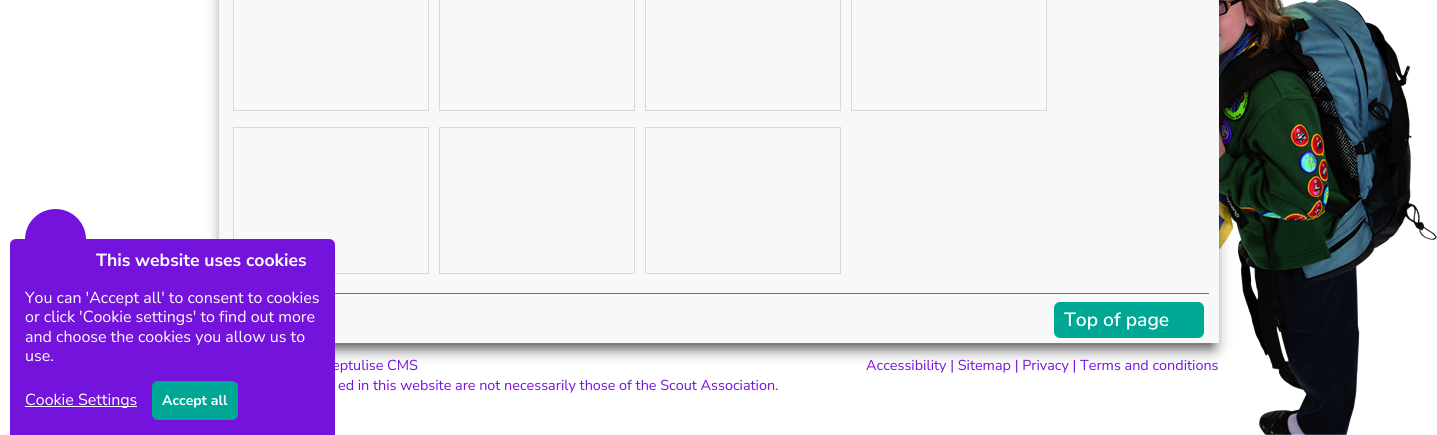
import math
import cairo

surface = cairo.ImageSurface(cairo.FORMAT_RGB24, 1437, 435)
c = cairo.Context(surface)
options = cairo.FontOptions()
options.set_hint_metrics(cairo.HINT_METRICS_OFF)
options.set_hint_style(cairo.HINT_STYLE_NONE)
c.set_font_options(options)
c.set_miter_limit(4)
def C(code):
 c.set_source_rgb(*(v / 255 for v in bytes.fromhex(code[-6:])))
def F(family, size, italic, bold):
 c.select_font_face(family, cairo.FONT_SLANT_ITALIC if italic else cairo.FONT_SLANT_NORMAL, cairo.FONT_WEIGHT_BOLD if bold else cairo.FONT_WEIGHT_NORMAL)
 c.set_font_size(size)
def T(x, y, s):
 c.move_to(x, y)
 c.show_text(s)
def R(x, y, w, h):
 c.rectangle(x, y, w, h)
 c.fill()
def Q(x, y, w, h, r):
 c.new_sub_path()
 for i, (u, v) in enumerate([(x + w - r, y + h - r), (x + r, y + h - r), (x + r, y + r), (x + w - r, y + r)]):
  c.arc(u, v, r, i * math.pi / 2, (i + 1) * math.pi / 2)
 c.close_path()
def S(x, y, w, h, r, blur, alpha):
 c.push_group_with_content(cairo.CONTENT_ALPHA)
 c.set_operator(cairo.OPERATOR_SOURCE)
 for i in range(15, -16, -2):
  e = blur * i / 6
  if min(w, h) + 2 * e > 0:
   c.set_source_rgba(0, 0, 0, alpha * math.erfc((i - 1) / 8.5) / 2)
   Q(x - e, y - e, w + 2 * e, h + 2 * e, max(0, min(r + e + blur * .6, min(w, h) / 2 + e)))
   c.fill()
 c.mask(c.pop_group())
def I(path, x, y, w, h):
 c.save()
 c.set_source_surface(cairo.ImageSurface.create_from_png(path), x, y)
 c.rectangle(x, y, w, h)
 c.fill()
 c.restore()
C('ffffff')
c.paint()
I('1.png',1219,0,218,435)
C('333333')
S(225,-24,988,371,0,8,1)
C('f8f8f9')
R(219,0,1000,343)
c.rectangle(233.5,127.5,195,146)
C('d7dada')
c.set_line_width(1)
c.stroke()
C('7413dc')
c.new_path()
c.move_to(16,239)
c.line_to(329,239)
c.curve_to(332.5,239,335,241.5,335,245)
c.line_to(335,435)
c.line_to(10,435)
c.line_to(10,245)
c.curve_to(10,241.5,12.5,239,16,239)
c.close_path()
c.fill()
Q(25,209,61,78,30.5)
c.fill()
F('Nunito Sans',17.6,0,1)
C('ffffff')
T(96,266,'This website uses cookies')
F('Nunito Sans',16,0,0)
T(25,303,'You can \'Accept all\' to consent to cookies')
T(25,322,'or click \'Cookie settings\' to find out more')
T(25,342,'and choose the cookies you allow us to')
T(25,361,'use.')
R(25,406,112,1)
T(25,405,'Cookie Settings')
C('00a794')
Q(152,381,86,39,6)
c.fill()
F('Nunito Sans',14,0,1)
C('ffffff')
T(162,405,'Accept all')
c.rectangle(233.5,-.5,195,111)
C('d7dada')
c.stroke()
c.rectangle(439.5,-.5,195,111)
c.stroke()
c.rectangle(645.5,-.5,195,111)
c.stroke()
c.rectangle(851.5,-.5,195,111)
c.stroke()
c.rectangle(439.5,127.5,195,146)
c.stroke()
c.rectangle(645.5,127.5,195,146)
c.stroke()
C('00a794')
R(335,293,874,1)
Q(1054,302,150,36,6)
c.fill()
F('Nunito Sans SemiBold',19.25,0,0)
C('ffffff')
T(1064,326,'Top of page')
F('Nunito Sans',14.4,0,0)
C('7413dc')
T(332,370,'eptulise CMS')
T(866,370,'Accessibility | Sitemap | Privacy | Terms and conditions')
T(338,390,'ed in this website are not necessarily those of the Scout Association.')
surface.write_to_png('o.png')
